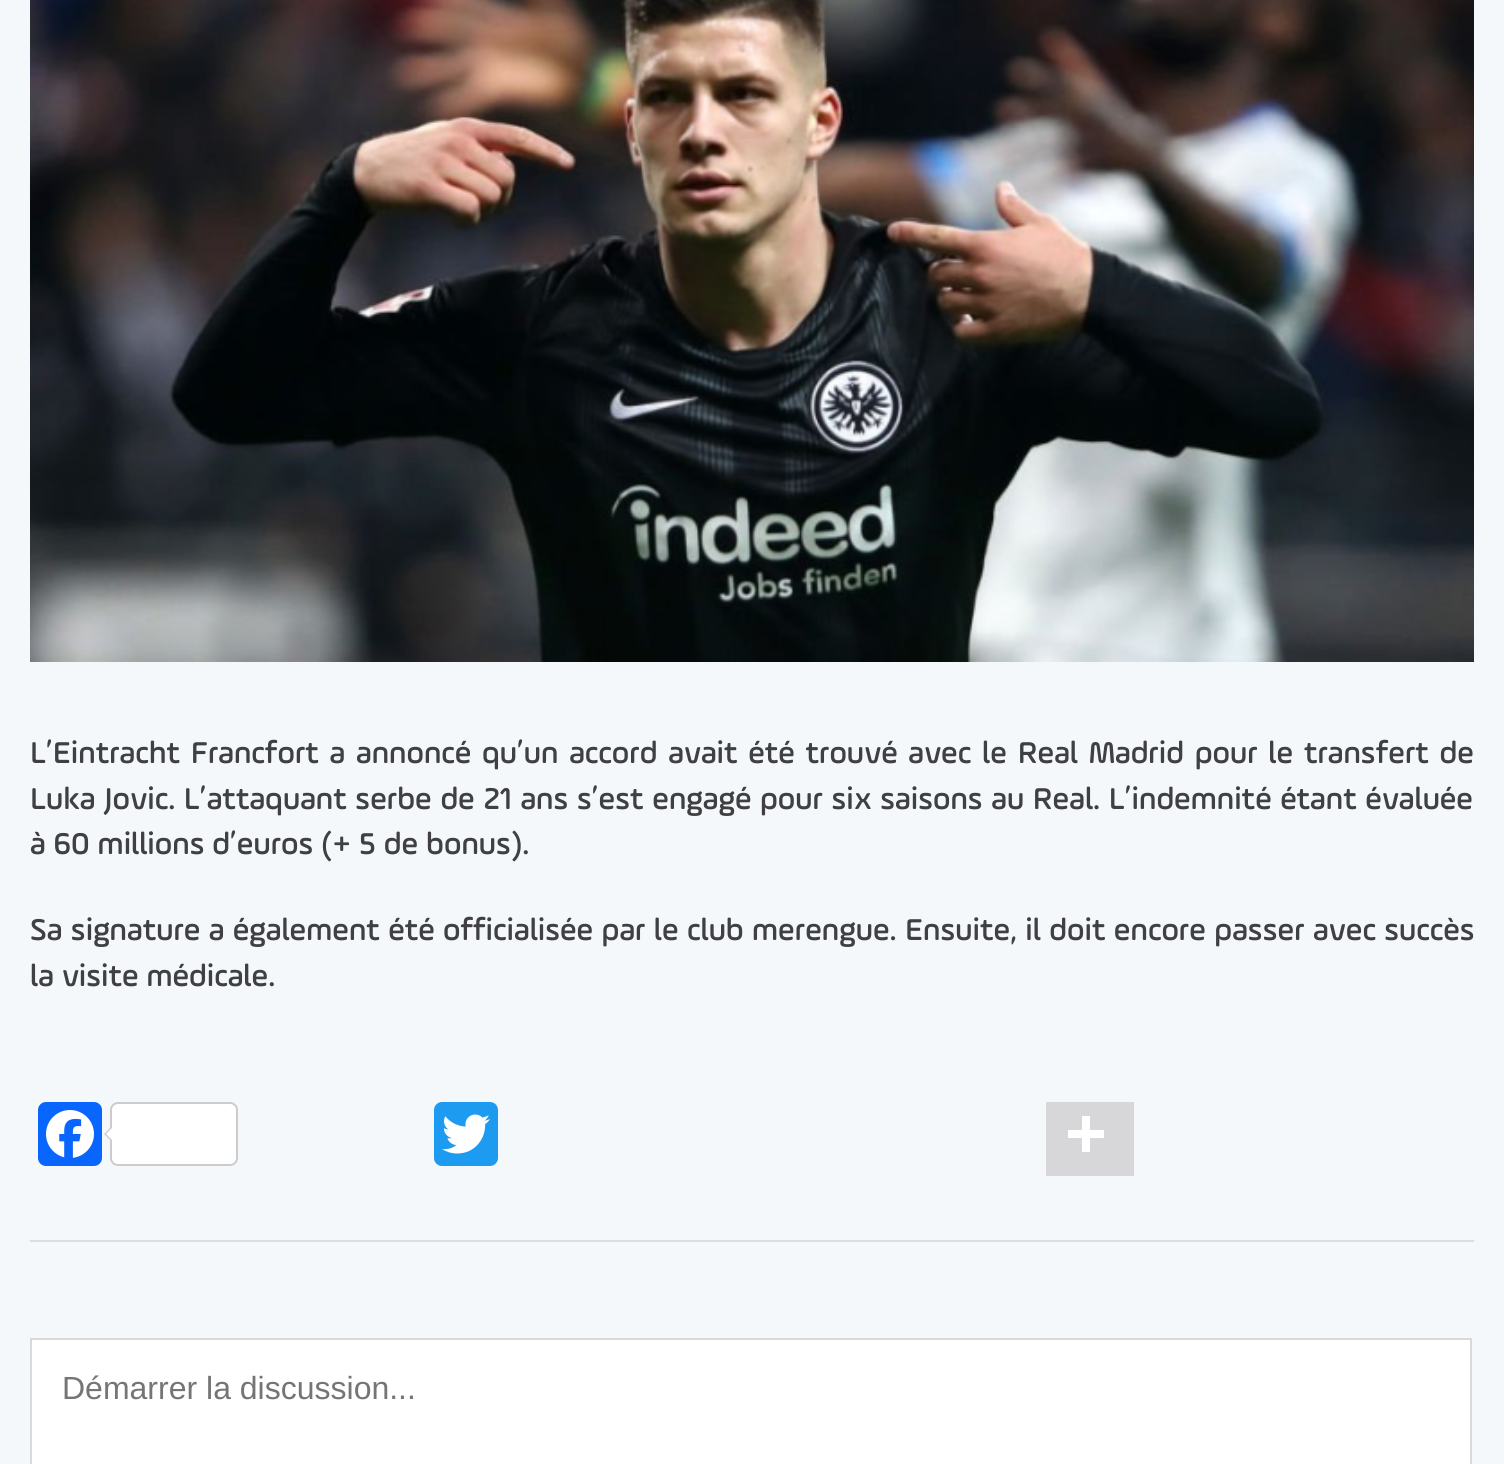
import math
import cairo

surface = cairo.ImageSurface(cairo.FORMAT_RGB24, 1504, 1464)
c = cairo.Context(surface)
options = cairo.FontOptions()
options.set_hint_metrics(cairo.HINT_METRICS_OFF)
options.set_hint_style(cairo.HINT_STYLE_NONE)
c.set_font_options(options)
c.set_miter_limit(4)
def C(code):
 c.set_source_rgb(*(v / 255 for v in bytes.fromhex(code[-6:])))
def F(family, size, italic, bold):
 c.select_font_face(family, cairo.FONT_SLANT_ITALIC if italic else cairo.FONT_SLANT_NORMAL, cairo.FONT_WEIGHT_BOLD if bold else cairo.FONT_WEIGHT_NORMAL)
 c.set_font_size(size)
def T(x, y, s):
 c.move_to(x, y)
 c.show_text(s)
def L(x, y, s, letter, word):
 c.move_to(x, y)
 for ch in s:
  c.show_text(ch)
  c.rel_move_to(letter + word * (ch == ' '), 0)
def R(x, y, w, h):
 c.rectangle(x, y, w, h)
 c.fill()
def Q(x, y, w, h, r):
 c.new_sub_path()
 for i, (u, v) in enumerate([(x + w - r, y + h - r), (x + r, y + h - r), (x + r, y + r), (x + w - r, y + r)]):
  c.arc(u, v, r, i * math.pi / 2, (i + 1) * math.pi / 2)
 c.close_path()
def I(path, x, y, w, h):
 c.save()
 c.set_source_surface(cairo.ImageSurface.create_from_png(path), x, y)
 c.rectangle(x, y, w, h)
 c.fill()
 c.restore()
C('f4f8fb')
c.paint()
I('1.png',30,0,1444,662)
F('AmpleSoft',32,0,0)
C('404042')
L(30,763,'L’Eintracht Francfort a annoncé qu’un accord avait été trouvé avec le Real Madrid pour le transfert de',0,2.9)
L(30,809,'Luka Jovic. L’attaquant serbe de 21 ans s’est engagé pour six saisons au Real. L’indemnité étant évaluée',0,.75)
T(30,854,'à 60 millions d’euros (+ 5 de bonus).')
L(30,940,'Sa signature a également été officialisée par le club merengue. Ensuite, il doit encore passer avec succès',0,.5)
T(30,986,'la visite médicale.')
C('0866ff')
Q(38,1102,64,64,8)
c.fill()
I('2.png',46,1110,48,48)
C('ffffff')
Q(111,1103,126,62,7)
c.fill_preserve()
C('cccccc')
c.stroke()
c.new_path()
c.move_to(112,1126)
c.line_to(112,1142)
c.line_to(104,1134)
c.close_path()
c.fill()
C('ffffff')
c.new_path()
c.move_to(114,1126)
c.line_to(114,1142)
c.line_to(106,1134)
c.close_path()
c.fill()
C('1d9bf0')
Q(434,1102,64,64,8)
c.fill()
I('3.png',442,1114,48,40)
C('d7d7da')
R(1046,1102,88,74)
C('ffffff')
R(1082,1116,8,36)
R(1068,1130,36,8)
C('dddddd')
R(30,1240,1444,2)
c.rectangle(31,1339,1440,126)
C('d9d9d9')
c.stroke()
C('ffffff')
R(32,1340,1438,124)
F('Liberation Sans',32,0,0)
C('757575')
T(62,1399,'Démarrer la discussion...')
surface.write_to_png('o.png')
